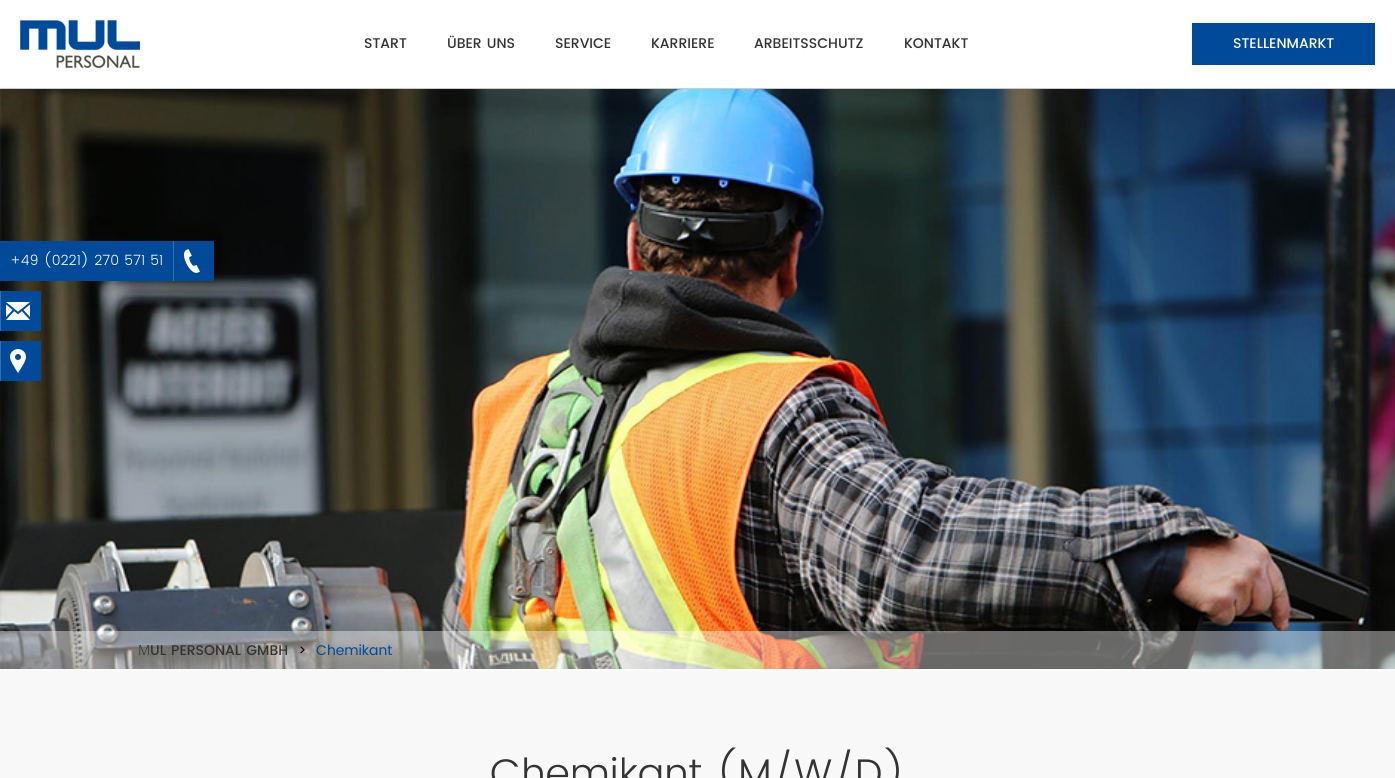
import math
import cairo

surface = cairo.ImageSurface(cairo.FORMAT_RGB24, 1395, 778)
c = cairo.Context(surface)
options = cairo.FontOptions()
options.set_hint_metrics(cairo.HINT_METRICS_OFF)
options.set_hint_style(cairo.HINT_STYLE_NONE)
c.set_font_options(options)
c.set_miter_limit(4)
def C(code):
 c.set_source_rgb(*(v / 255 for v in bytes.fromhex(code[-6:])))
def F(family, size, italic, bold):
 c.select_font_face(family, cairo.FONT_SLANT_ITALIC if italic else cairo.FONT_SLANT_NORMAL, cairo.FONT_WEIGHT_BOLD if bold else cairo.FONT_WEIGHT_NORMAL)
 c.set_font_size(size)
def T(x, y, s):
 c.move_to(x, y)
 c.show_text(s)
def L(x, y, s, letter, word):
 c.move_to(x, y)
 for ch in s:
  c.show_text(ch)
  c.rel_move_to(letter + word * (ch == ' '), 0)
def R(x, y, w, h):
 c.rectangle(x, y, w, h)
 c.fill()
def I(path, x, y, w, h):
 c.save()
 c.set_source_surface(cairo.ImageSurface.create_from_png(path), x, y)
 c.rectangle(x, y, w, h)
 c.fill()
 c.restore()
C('f8f8f8')
c.paint()
C('ffffff')
R(0,0,1395,88)
C('cbcbcb')
R(0,88,1395,1)
I('1.png',20,20,120,48)
F('Poppins Medium',14,0,0)
C('333333')
T(364,48,'START')
L(447,48,'ÜBER UNS',0,1)
T(555,48,'SERVICE')
T(651,48,'KARRIERE')
T(754,48,'ARBEITSSCHUTZ')
T(904,48,'KONTAKT')
C('004a99')
R(1192,23,183,42)
C('ffffff')
T(1233,48,'STELLENMARKT')
I('5.png',0,89,1395,580)
C('004a99')
R(0,241,173,40)
R(174,241,40,40)
C('336ead')
R(173,241,1,40)
F('Poppins Light',14,0,0)
C('ffffff')
L(10,265,'+49 (0221) 270 571 51',0,1)
I('2.png',184,249,16,24)
C('004a99')
R(1,291,40,40)
C('336ead')
R(0,291,1,40)
I('3.png',6,302,24,18)
C('004a99')
R(1,341,40,40)
C('336ead')
R(0,341,1,40)
I('4.png',10,349,16,24)
c.set_source_rgba(1,1,1,0.4)
R(0,631,1395,40)
F('Noto Sans Light',14,0,0)
C('333333')
T(138,655,'M')
F('Poppins Medium',14,0,0)
L(150,655,'UL PERSONAL GMBH',0,1)
F('Poppins',14,0,0)
C('000000')
T(298,655,'>')
C('004a99')
T(316,655,'Chemikant')
F('Poppins Light',40,0,0)
C('333333')
L(490,787,'Chemikant (M/W/D)',0,1)
surface.write_to_png('o.png')
